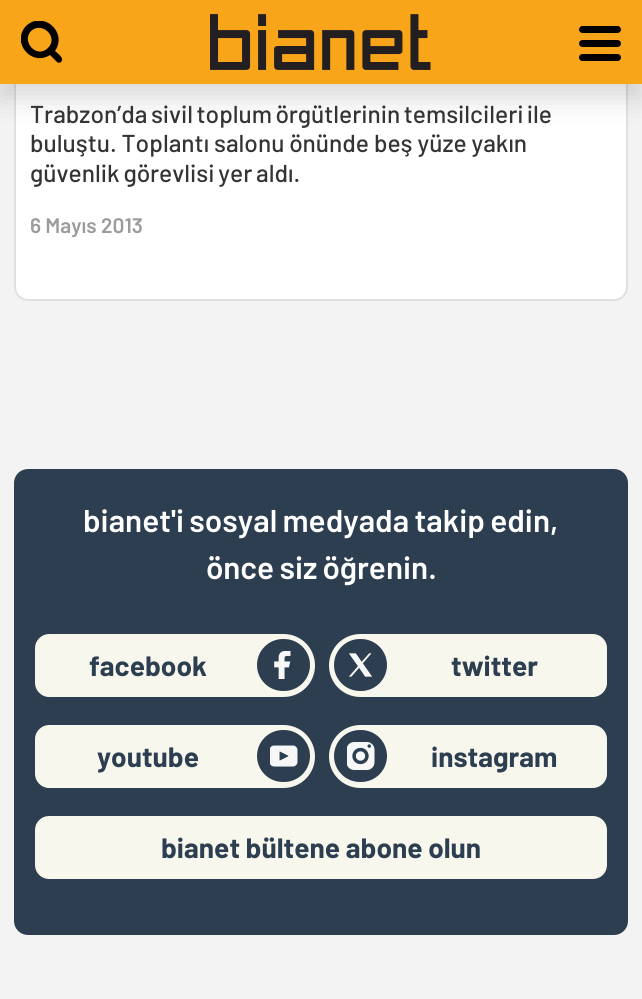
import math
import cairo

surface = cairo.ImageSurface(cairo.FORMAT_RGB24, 642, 999)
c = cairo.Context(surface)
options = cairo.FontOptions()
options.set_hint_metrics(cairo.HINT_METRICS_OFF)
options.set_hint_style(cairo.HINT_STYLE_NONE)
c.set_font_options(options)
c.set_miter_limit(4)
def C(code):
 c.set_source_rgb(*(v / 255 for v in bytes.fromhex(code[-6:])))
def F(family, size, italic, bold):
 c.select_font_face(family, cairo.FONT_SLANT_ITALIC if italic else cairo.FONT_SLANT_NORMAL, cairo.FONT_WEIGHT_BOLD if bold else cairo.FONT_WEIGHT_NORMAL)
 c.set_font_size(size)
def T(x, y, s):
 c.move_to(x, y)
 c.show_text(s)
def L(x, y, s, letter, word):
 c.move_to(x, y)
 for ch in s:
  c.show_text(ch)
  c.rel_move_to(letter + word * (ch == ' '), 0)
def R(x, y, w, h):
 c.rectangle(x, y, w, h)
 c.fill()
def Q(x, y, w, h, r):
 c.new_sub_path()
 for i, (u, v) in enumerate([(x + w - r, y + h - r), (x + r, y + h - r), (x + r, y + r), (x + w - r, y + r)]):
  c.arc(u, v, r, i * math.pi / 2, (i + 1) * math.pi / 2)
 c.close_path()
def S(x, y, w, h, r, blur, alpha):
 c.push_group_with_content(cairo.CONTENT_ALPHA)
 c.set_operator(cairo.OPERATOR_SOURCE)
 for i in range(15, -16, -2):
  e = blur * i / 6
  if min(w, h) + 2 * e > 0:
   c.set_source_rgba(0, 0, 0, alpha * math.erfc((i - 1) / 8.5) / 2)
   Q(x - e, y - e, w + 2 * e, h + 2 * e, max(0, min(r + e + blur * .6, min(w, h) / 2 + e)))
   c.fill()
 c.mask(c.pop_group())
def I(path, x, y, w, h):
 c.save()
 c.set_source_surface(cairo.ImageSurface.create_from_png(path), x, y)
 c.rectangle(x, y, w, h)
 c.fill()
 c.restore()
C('f3f3f3')
c.paint()
C('ffffff')
Q(15,-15,612,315,13)
c.fill_preserve()
C('e0e0e0')
c.stroke()
C('000000')
S(0,14,642,84,0,14,.15)
C('f9a51a')
R(0,0,642,84)
c.save()
c.rectangle(21,21,42,42)
c.clip()
C('000000')
c.set_fill_rule(cairo.FILL_RULE_EVEN_ODD)
c.new_path()
c.move_to(26,26)
c.curve_to(43,10,68,32,55,51)
c.curve_to(57,53,65,58,61,62)
c.curve_to(60,63,58,63,57,62)
c.line_to(50,55)
c.curve_to(31,67,11,42,26,26)
c.close_path()
c.move_to(31,31)
c.curve_to(21,42,37,59,48,48)
c.curve_to(59,37,42,21,31,31)
c.close_path()
c.fill()
c.restore()
I('1.png',210,14,221,56)
C('000000')
Q(579,26,42,7,3.5)
c.fill()
Q(579,40,42,7,3.5)
c.fill()
Q(579,54,42,7,3.5)
c.fill()
F('Barlow Medium',24.5,0,0)
C('343434')
L(30,123,'Trabzon’da sivil toplum örgütlerinin temsilcileri ile',0,-1.5)
T(30,152,'buluştu. Toplantı salonu önünde beş yüze yakın')
L(30,182,'güvenlik görevlisi yer aldı.',0,-1)
F('Barlow SemiBold',21,0,0)
C('9b9b9b')
T(30,233,'6 Mayıs 2013')
C('2c3e50')
Q(14,469,614,466,14)
c.fill()
F('Barlow SemiBold',31.5,0,0)
C('ffffff')
L(83,532,'bianet\'i sosyal medyada takip edin,',0,-1)
L(206,579,'önce siz öğrenin.',0,-1)
C('f7f7ed')
c.new_path()
c.move_to(49,634)
c.line_to(283.5,634)
c.curve_to(301,634,315,648,315,665.5)
c.curve_to(315,683,301,697,283.5,697)
c.line_to(49,697)
c.curve_to(41.5,697,35,690.5,35,683)
c.line_to(35,648)
c.curve_to(35,640.5,41.5,634,49,634)
c.close_path()
c.fill()
F('Barlow',28,0,1)
C('2c3e50')
T(89,676,'facebook')
Q(257,639,53,52,26)
c.fill()
I('2.png',274,651,17,28)
C('f7f7ed')
c.new_path()
c.move_to(360.5,634)
c.line_to(593,634)
c.curve_to(600.5,634,607,640.5,607,648)
c.line_to(607,683)
c.curve_to(607,690.5,600.5,697,593,697)
c.line_to(360.5,697)
c.curve_to(343,697,329,683,329,665.5)
c.curve_to(329,648,343,634,360.5,634)
c.close_path()
c.fill()
C('2c3e50')
Q(334,639,53,52,26)
c.fill()
I('3.png',349,653,23,24)
T(451,676,'twitter')
C('f7f7ed')
c.new_path()
c.move_to(49,725)
c.line_to(283.5,725)
c.curve_to(301,725,315,739,315,756.5)
c.curve_to(315,774,301,788,283.5,788)
c.line_to(49,788)
c.curve_to(41.5,788,35,781.5,35,774)
c.line_to(35,739)
c.curve_to(35,731.5,41.5,725,49,725)
c.close_path()
c.fill()
C('2c3e50')
T(97,767,'youtube')
Q(257,730,53,52,26)
c.fill()
I('4.png',270,745,28,22)
C('f7f7ed')
c.new_path()
c.move_to(360.5,725)
c.line_to(593,725)
c.curve_to(600.5,725,607,731.5,607,739)
c.line_to(607,774)
c.curve_to(607,781.5,600.5,788,593,788)
c.line_to(360.5,788)
c.curve_to(343,788,329,774,329,756.5)
c.curve_to(329,739,343,725,360.5,725)
c.close_path()
c.fill()
C('2c3e50')
Q(334,730,53,52,26)
c.fill()
I('5.png',347,742,28,28)
T(431,767,'instagram')
C('f7f7ed')
Q(35,816,572,63,14)
c.fill()
C('2c3e50')
T(161,858,'bianet bültene abone olun')
surface.write_to_png('o.png')
